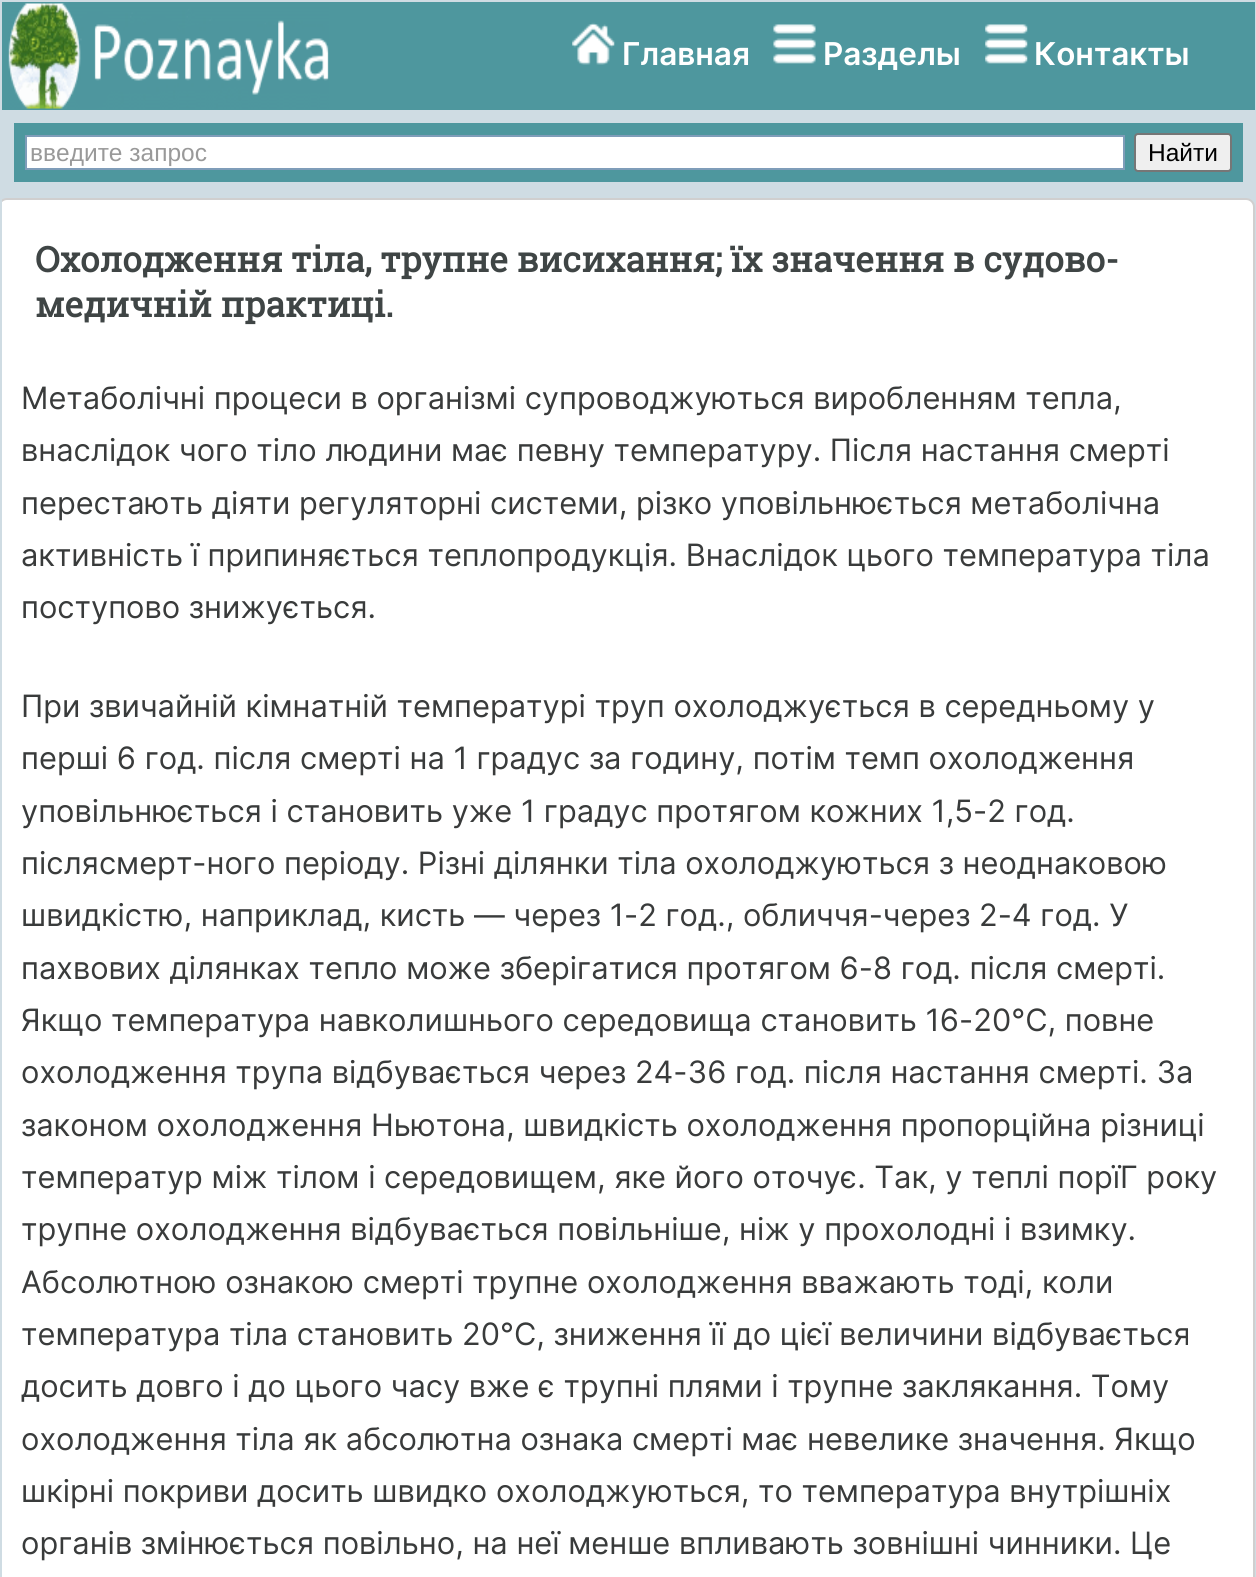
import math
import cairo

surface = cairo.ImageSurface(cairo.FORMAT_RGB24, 1256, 1577)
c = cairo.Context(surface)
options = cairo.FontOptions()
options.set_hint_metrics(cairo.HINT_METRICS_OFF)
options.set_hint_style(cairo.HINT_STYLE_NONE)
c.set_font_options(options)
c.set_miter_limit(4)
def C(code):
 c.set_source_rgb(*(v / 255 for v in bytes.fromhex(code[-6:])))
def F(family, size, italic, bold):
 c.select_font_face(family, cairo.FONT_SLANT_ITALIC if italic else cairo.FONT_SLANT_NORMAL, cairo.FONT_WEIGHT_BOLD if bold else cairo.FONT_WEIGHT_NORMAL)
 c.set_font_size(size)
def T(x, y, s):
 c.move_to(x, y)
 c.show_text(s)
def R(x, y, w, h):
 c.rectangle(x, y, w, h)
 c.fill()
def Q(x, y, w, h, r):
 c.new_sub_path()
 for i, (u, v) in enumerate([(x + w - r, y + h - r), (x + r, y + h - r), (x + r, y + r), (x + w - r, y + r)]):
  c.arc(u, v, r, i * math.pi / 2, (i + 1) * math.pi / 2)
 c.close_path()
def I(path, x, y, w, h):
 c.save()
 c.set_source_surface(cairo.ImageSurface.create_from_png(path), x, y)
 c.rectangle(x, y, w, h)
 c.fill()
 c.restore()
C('cfdce3')
c.paint()
C('4e979e')
R(2,2,1253,108)
I('1.png',8,3,321,106)
I('2.png',572,22,43,43)
F('Inter SemiBold',31.5,0,0)
C('ffffff')
T(622,65,'Главная')
I('3.png',773,24,43,40)
T(823,65,'Разделы')
I('4.png',985,24,43,40)
T(1034,65,'Контакты')
C('4e979e')
R(14,123,1229,59)
C('ffffff')
c.rectangle(26,136,1098,33)
c.fill_preserve()
C('7f9db9')
c.stroke()
F('Liberation Sans',24.5,0,0)
C('999999')
T(30,161,'введите запрос')
C('efefef')
Q(1135,134,96,37,3)
c.fill_preserve()
C('767676')
c.stroke()
C('000000')
T(1148,161,'Найти')
c.save()
c.rectangle(2,2,1253,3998)
c.clip()
C('ffffff')
Q(-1,199,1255,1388,8)
c.fill_preserve()
C('d0cfcf')
c.stroke()
c.restore()
F('Roboto Slab',35,0,1)
C('3f4545')
T(35,272,'Охолодження тіла, трупне висихання; їх значення в судово-')
T(35,317,'медичній практиці.')
F('Inter',30.8,0,0)
C('393b3b')
T(21,409,'Метаболічні процеси в організмі супроводжуються виробленням тепла,')
T(21,461,'внаслідок чого тіло людини має певну температуру. Після настання смерті')
T(21,514,'перестають діяти регуляторні системи, різко уповільнюється метаболічна')
T(21,566,'активність ї припиняється теплопродукція. Внаслідок цього температура тіла')
T(21,618,'поступово знижується.')
T(21,717,'При звичайній кімнатній температурі труп охолоджується в середньому у')
T(21,769,'перші 6 год. після смерті на 1 градус за годину, потім темп охолодження')
T(21,822,'уповільнюється і становить уже 1 градус протягом кожних 1,5-2 год.')
T(21,874,'післясмерт-ного періоду. Різні ділянки тіла охолоджуються з неоднаковою')
T(21,926,'швидкістю, наприклад, кисть — через 1-2 год., обличчя-через 2-4 год. У')
T(21,979,'пахвових ділянках тепло може зберігатися протягом 6-8 год. після смерті.')
T(21,1031,'Якщо температура навколишнього середовища становить 16-20°С, повне')
T(21,1083,'охолодження трупа відбувається через 24-36 год. після настання смерті. За')
T(21,1136,'законом охолодження Ньютона, швидкість охолодження пропорційна різниці')
T(21,1188,'температур між тілом і середовищем, яке його оточує. Так, у теплі порїГ року')
T(21,1240,'трупне охолодження відбувається повільніше, ніж у прохолодні і взимку.')
T(21,1293,'Абсолютною ознакою смерті трупне охолодження вважають тоді, коли')
T(21,1345,'температура тіла становить 20°С, зниження її до цієї величини відбувається')
T(21,1397,'досить довго і до цього часу вже є трупні плями і трупне заклякання. Тому')
T(21,1450,'охолодження тіла як абсолютна ознака смерті має невелике значення. Якщо')
T(21,1502,'шкірні покриви досить швидко охолоджуються, то температура внутрішніх')
T(21,1554,'органів змінюється повільно, на неї менше впливають зовнішні чинники. Це')
surface.write_to_png('o.png')
